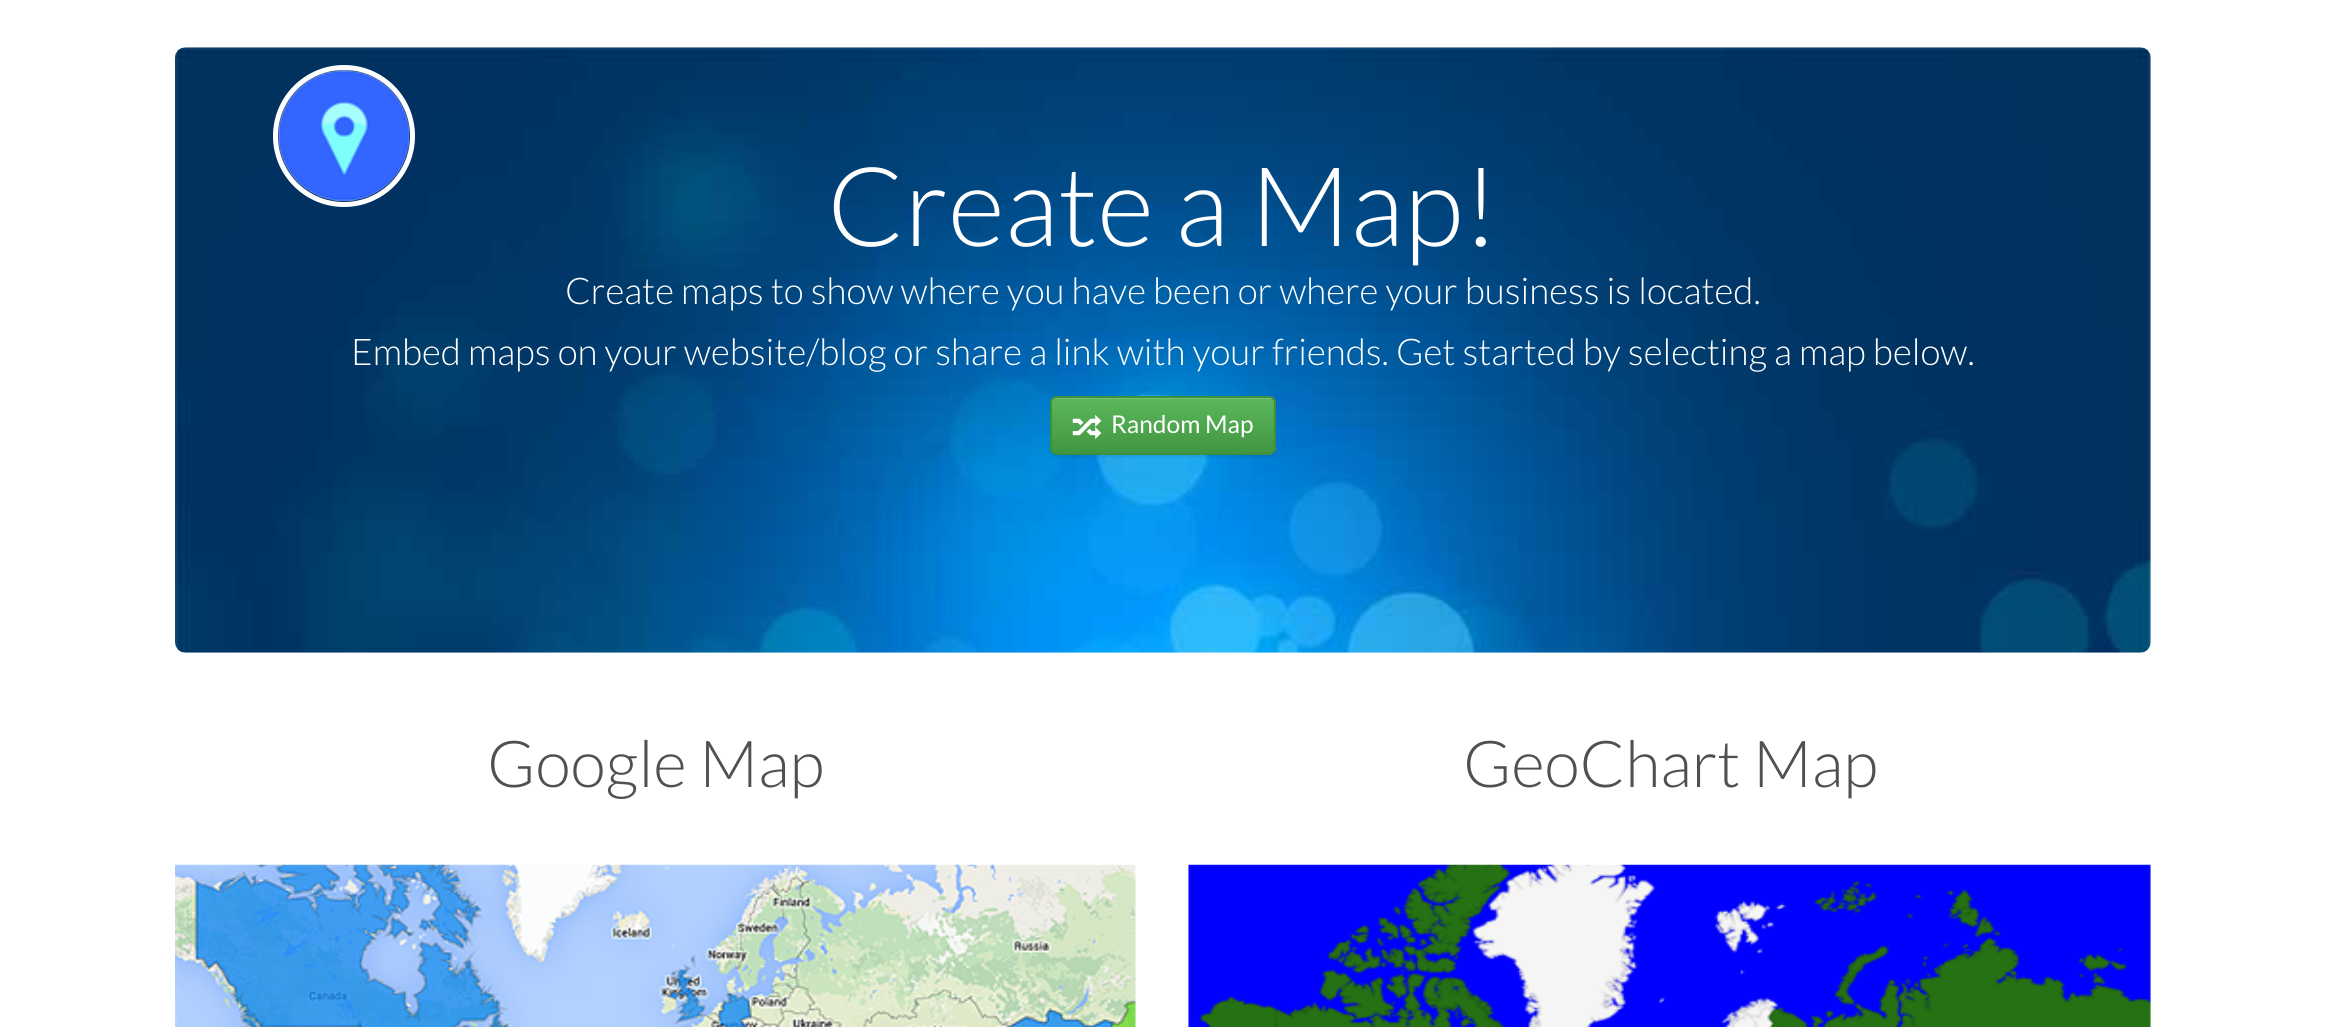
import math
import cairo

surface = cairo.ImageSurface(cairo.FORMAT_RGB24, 2325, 1027)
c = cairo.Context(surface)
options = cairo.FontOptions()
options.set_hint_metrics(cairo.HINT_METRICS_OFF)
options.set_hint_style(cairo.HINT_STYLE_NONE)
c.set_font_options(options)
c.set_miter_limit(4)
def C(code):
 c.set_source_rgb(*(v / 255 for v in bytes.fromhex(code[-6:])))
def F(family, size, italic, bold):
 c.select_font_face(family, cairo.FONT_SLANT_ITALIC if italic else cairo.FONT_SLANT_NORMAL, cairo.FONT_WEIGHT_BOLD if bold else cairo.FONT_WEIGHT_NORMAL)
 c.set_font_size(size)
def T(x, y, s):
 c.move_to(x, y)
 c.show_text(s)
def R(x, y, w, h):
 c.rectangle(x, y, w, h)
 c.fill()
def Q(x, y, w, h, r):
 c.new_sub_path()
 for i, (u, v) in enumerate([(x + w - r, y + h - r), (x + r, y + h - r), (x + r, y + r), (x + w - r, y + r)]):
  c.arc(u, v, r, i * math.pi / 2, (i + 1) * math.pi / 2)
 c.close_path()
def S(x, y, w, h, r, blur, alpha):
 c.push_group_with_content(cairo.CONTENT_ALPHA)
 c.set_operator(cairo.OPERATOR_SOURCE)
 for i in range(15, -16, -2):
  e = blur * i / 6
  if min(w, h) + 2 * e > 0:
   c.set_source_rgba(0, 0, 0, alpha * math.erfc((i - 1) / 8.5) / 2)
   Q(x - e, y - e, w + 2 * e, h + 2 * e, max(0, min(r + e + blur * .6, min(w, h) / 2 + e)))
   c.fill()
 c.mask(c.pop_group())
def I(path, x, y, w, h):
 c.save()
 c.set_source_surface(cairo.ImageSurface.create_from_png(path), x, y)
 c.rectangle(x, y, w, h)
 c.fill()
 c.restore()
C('ffffff')
c.paint()
I('2.png',175,47,1976,606)
c.arc(344,136,68.5,0,2 * math.pi)
C('ffffff')
c.set_line_width(5)
c.stroke()
I('1.png',278,70,132,132)
F('Lato Light',110.25,0,0)
T(827,246,'Create a Map!')
F('Lato Light',36.75,0,0)
T(565,304,'Create maps to show where you have been or where your business is located.')
T(351,365,'Embed maps on your website/blog or share a link with your friends. Get started by selecting a map below.')
C('000000')
S(1050,397,226,60,7,1,.07)
c.save()
Q(1050,396,226,59,7)
c.clip()
gradient = cairo.LinearGradient(1163,397,1163,453)
gradient.add_color_stop_rgba(0,0.361,0.722,0.361,1)
gradient.add_color_stop_rgba(1,0.255,0.588,0.255,1)
c.set_source(gradient)
R(1050,397,226,56)
c.restore()
c.set_source_rgba(1,1,1,0.15)
c.new_path()
c.move_to(1057,399)
c.line_to(1269,399)
c.curve_to(1272,399,1274,401,1274,404)
c.line_to(1274,402)
c.curve_to(1274,399,1272,397,1269,397)
c.line_to(1057,397)
c.curve_to(1054,397,1052,399,1052,402)
c.line_to(1052,404)
c.curve_to(1052,401,1054,399,1057,399)
c.close_path()
c.fill()
Q(1051,397,224,57,6)
C('3e8f3e')
c.set_line_width(2)
c.stroke()
I('3.png',1072,414,30,25)
F('Lato',24.5,0,0)
C('ffffff')
T(1111,433,'Random Map')
F('Lato Light',64.75,0,0)
C('505050')
T(487,787,'Google Map')
I('4.png',175,864,961,163)
T(1463,787,'GeoChart Map')
I('5.png',1188,864,963,163)
surface.write_to_png('o.png')
